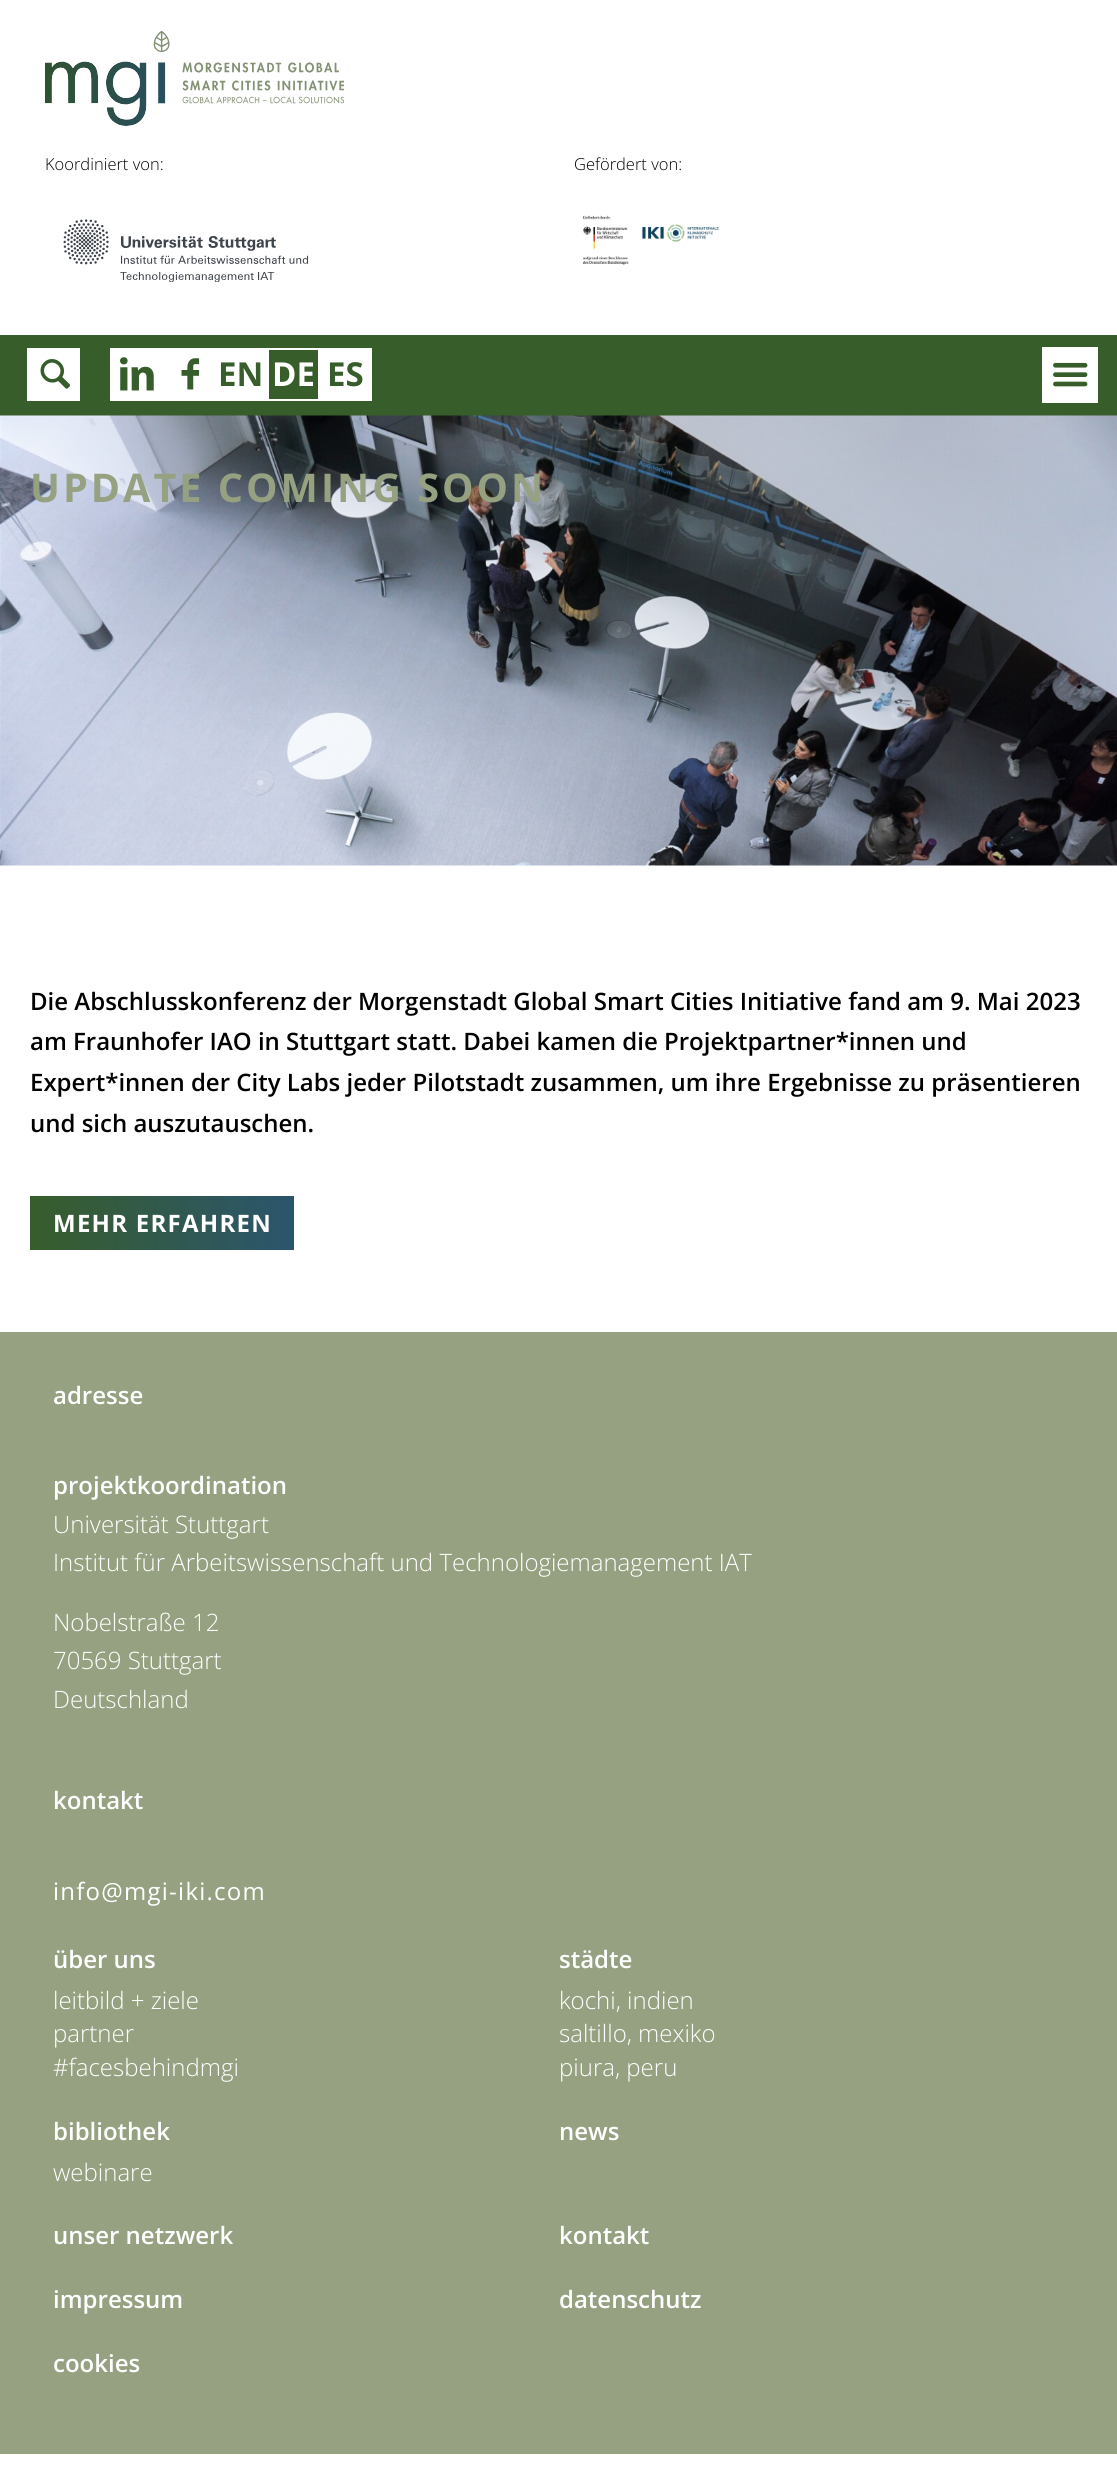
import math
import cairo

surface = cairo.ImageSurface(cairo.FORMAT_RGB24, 1117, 2484)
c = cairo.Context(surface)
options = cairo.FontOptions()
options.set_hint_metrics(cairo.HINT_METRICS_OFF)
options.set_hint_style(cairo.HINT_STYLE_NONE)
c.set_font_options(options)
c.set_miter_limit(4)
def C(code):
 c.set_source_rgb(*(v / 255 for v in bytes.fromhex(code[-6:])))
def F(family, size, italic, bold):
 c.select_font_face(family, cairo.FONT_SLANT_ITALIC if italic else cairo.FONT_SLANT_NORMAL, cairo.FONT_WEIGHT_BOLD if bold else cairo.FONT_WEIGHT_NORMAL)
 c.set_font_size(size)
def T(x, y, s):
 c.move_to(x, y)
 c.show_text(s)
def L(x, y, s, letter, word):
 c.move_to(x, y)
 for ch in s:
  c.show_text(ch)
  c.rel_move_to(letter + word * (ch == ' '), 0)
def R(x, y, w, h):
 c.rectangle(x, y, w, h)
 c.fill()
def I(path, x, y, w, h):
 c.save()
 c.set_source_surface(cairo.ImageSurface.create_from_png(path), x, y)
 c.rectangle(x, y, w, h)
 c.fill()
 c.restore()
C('ffffff')
c.paint()
I('1.png',45,31,300,95)
F('Open Sans Light',16.5,0,0)
C('000000')
T(45,170,'Koordiniert von:')
I('2.png',63,219,246,63)
T(574,170,'Gefördert von:')
I('3.png',582,215,137,50)
C('375d2b')
R(0,335,1117,81)
C('ffffff')
R(27,348,53,53)
I('4.png',40,359,31,30)
R(110,348,157,53)
I('5.png',120,357,34,34)
I('6.png',181,358,19,32)
F('Open Sans',33,0,1)
C('375d2b')
T(218,386,'EN')
c.rectangle(268,349,51,51)
C('ffffff')
c.stroke()
T(272,386,'DE')
R(320,348,52,53)
C('375d2b')
T(327,386,'ES')
C('ffffff')
R(1042,347,56,56)
I('7.png',1053,362,35,25)
I('8.png',0,415,1117,451)
F('Open Sans',39.6,0,1)
C('96a181')
L(30,502,'UPDATE COMING SOON',3,0)
F('Open Sans SemiBold',24,0,0)
C('000000')
T(30,1010,'Die Abschlusskonferenz der Morgenstadt Global Smart Cities Initiative fand am 9. Mai 2023')
T(30,1050,'am Fraunhofer IAO in Stuttgart statt. Dabei kamen die Projektpartner*innen und')
T(30,1091,'Expert*innen der City Labs jeder Pilotstadt zusammen, um ihre Ergebnisse zu präsentieren')
T(30,1132,'und sich auszutauschen.')
gradient = cairo.LinearGradient(30,1223,294,1223)
gradient.add_color_stop_rgba(0,0.216,0.365,0.169,1)
gradient.add_color_stop_rgba(1,0.169,0.333,0.431,1)
c.set_source(gradient)
R(30,1196,264,54)
F('Open Sans',24,0,1)
C('ffffff')
L(53,1232,'MEHR ERFAHREN',1.25,0)
C('96a181')
R(0,1332,1117,1122)
F('Open Sans SemiBold',24,0,0)
C('ffffff')
T(53,1404,'adresse')
T(53,1494,'projektkoordination')
F('Open Sans Light',24,0,0)
T(53,1533,'Universität Stuttgart')
T(53,1571,'Institut für Arbeitswissenschaft und Technologiemanagement IAT')
T(53,1631,'Nobelstraße 12')
T(53,1669,'70569 Stuttgart')
T(53,1708,'Deutschland')
F('Open Sans SemiBold',24,0,0)
T(53,1809,'kontakt')
F('Open Sans',24,0,0)
L(53,1900,'info@mgi-iki.com',1.25,0)
F('Open Sans SemiBold',24,0,0)
T(53,1968,'über uns')
F('Open Sans Light',24,0,0)
T(53,2009,'leitbild + ziele')
T(53,2042,'partner')
T(53,2076,'#facesbehindmgi')
F('Open Sans SemiBold',24,0,0)
T(559,1968,'städte')
F('Open Sans Light',24,0,0)
T(559,2009,'kochi, indien')
T(559,2042,'saltillo, mexiko')
T(559,2076,'piura, peru')
F('Open Sans SemiBold',24,0,0)
T(53,2140,'bibliothek')
F('Open Sans Light',24,0,0)
T(53,2181,'webinare')
F('Open Sans SemiBold',24,0,0)
T(559,2140,'news')
T(53,2244,'unser netzwerk')
T(559,2244,'kontakt')
T(53,2308,'impressum')
T(559,2308,'datenschutz')
T(53,2372,'cookies')
surface.write_to_png('o.png')
